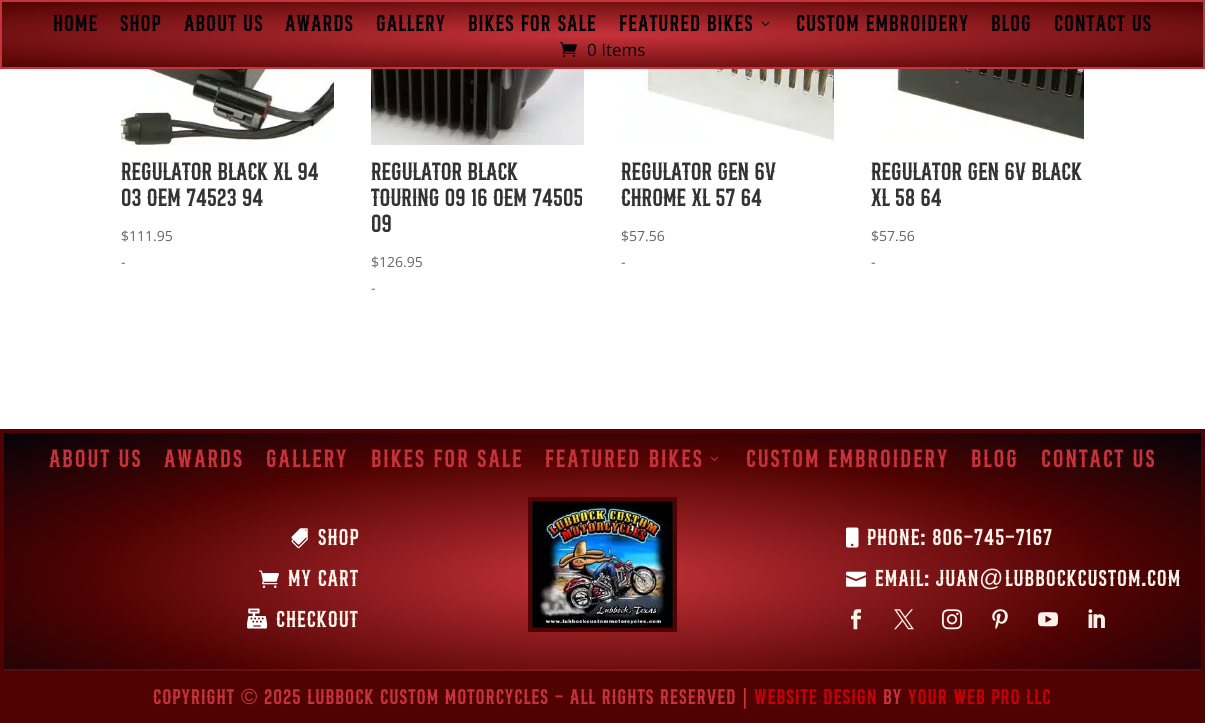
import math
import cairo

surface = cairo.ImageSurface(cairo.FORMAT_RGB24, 1205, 723)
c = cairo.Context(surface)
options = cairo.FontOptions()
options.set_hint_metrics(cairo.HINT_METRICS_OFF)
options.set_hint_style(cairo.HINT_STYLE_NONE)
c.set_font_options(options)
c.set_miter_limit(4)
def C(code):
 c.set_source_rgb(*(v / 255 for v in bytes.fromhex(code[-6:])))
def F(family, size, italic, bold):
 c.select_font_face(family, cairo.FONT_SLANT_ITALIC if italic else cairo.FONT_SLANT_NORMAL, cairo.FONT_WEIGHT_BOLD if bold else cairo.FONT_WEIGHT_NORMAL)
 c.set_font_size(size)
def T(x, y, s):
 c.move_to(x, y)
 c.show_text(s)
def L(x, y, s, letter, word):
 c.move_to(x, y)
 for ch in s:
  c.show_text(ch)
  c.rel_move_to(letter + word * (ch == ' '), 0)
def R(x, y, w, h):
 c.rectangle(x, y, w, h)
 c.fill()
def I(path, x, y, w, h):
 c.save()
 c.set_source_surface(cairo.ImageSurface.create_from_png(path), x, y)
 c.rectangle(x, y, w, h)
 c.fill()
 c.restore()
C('ffffff')
c.paint()
gradient = cairo.RadialGradient(0,0,0,0,0,1)
gradient.set_matrix(cairo.Matrix(1 / 849, 0, 0, 1 / 46, -1 * 603 / 849, -1 * 35 / 46))
gradient.add_color_stop_rgba(0,0.78,0.2,0.227,1)
gradient.add_color_stop_rgba(1,0.314,0.008,0.008,1)
c.set_source(gradient)
R(2,2,1201,65)
c.rectangle(1,1,1203,67)
C('c7333a')
c.stroke()
F('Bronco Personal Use',24,0,0)
C('040309')
L(53,31,'HOME',1,0)
L(120,31,'SHOP',1,0)
L(184,31,'ABOUT US',1,0)
L(285,31,'AWARDS',1,0)
L(376,31,'GALLERY',1,0)
L(468,31,'BIKES FOR SALE',1,0)
L(619,31,'FEATURED BIKES',1,0)
I('1.png',761,21,9,5)
L(796,31,'CUSTOM EMBROIDERY',1,0)
L(991,31,'BLOG',1,0)
L(1054,31,'CONTACT US',1,0)
I('2.png',560,42,17,15)
F('Open Sans',17,0,0)
T(587,56,'0 Items')
I('3.png',121,69,213,76)
F('Bronco Personal Use',26,0,0)
C('333333')
T(121,180,'Regulator Black Xl 94')
T(121,206,'03 OEM 74523 94')
F('Open Sans',14,0,0)
C('666666')
T(121,241,'$111.95')
T(121,267,'-')
I('4.png',371,69,213,76)
F('Bronco Personal Use',26,0,0)
C('333333')
T(371,180,'Regulator Black')
T(371,206,'Touring 09 16 OEM 74505')
T(371,232,'09')
F('Open Sans',14,0,0)
C('666666')
T(371,267,'$126.95')
T(371,293,'-')
I('5.png',621,69,213,76)
F('Bronco Personal Use',26,0,0)
C('333333')
T(621,180,'Regulator Gen 6v')
T(621,206,'Chrome Xl 57 64')
F('Open Sans',14,0,0)
C('666666')
T(621,241,'$57.56')
T(621,267,'-')
I('6.png',878,69,206,76)
F('Bronco Personal Use',26,0,0)
C('333333')
T(871,180,'Regulator Gen 6v Black')
T(871,206,'Xl 58 64')
F('Open Sans',14,0,0)
C('666666')
T(871,241,'$57.56')
T(871,267,'-')
gradient = cairo.RadialGradient(0,0,0,0,0,1)
gradient.set_matrix(cairo.Matrix(1 / 846, 0, 0, 1 / 205, -1 * 603 / 846, -1 * 578 / 205))
gradient.add_color_stop_rgba(0,0.78,0.2,0.227,1)
gradient.add_color_stop_rgba(.6,0.314,0.008,0.008,1)
gradient.add_color_stop_rgba(1,0.016,0.012,0.035,1)
c.set_source(gradient)
R(4,433,1197,236)
gradient = cairo.RadialGradient(0,0,0,0,0,1)
gradient.set_matrix(cairo.Matrix(1 / 846, 0, 0, 1 / 205, -1 * 603 / 846, -1 * 578 / 205))
gradient.add_color_stop_rgba(0,0.78,0.2,0.227,1)
gradient.add_color_stop_rgba(.6,0.427,0.055,0.059,1)
gradient.add_color_stop_rgba(1,0.2,0.059,0.082,1)
c.set_source(gradient)
R(4,669,1197,2)
C('500202')
R(0,429,1205,4)
R(1201,429,4,294)
R(0,429,4,294)
F('Bronco Personal Use',26,0,0)
C('c7333a')
L(49,467,'ABOUT US',2,0)
L(164,467,'AWARDS',2,0)
L(266,467,'GALLERY',2,0)
L(371,467,'BIKES FOR SALE',2,0)
L(545,467,'FEATURED BIKES',2,0)
I('7.png',710,456,9,5)
L(746,467,'CUSTOM EMBROIDERY',2,0)
L(971,467,'BLOG',2,0)
L(1041,467,'CONTACT US',2,0)
I('8.png',291,528,17,21)
F('Bronco Personal Use',24,0,0)
C('f9f2e8')
L(318,545,'SHOP',1,0)
I('9.png',259,570,20,18)
L(288,586,'MY CART',1,0)
I('10.png',247,608,21,21)
L(276,627,'CHECKOUT',1,0)
c.rectangle(530,499,145,131)
C('500202')
c.set_line_width(4)
c.stroke()
I('11.png',532,501,141,127)
I('12.png',846,527,13,21)
C('f9f2e8')
L(867,545,'Phone: 806-745-7167',1,0)
I('13.png',846,571,20,16)
L(875,586,'Email: juan',1,0)
F('Liberation Sans',24,0,0)
L(979,586,'@',1,0)
F('Bronco Personal Use',24,0,0)
L(1005,586,'lubbockcustom.com',1,0)
I('14.png',851,609,10,21)
I('15.png',894,609,20,21)
I('16.png',942,609,20,21)
I('17.png',992,609,16,21)
I('18.png',1038,612,20,15)
I('19.png',1088,609,17,19)
C('500202')
R(4,671,1197,52)
F('Bronco Personal Use',22,0,0)
C('c7333a')
L(153,704,'COPYRIGHT',1,0)
F('Liberation Sans',22,0,0)
L(241,704,'©',1,0)
F('Bronco Personal Use',22,0,0)
L(264,704,'2025 LUBBOCK CUSTOM MOTORCYCLES - ALL RIGHTS RESERVED',1,0)
F('Liberation Sans',22,0,0)
L(742,704,'|',1,0)
F('Bronco Personal Use',22,0,0)
C('c60009')
L(754,704,'WEBSITE DESIGN',1,0)
C('c7333a')
L(883,704,'BY',1,0)
C('c60009')
L(908,704,'YOUR WEB PRO LLC',1,0)
surface.write_to_png('o.png')
